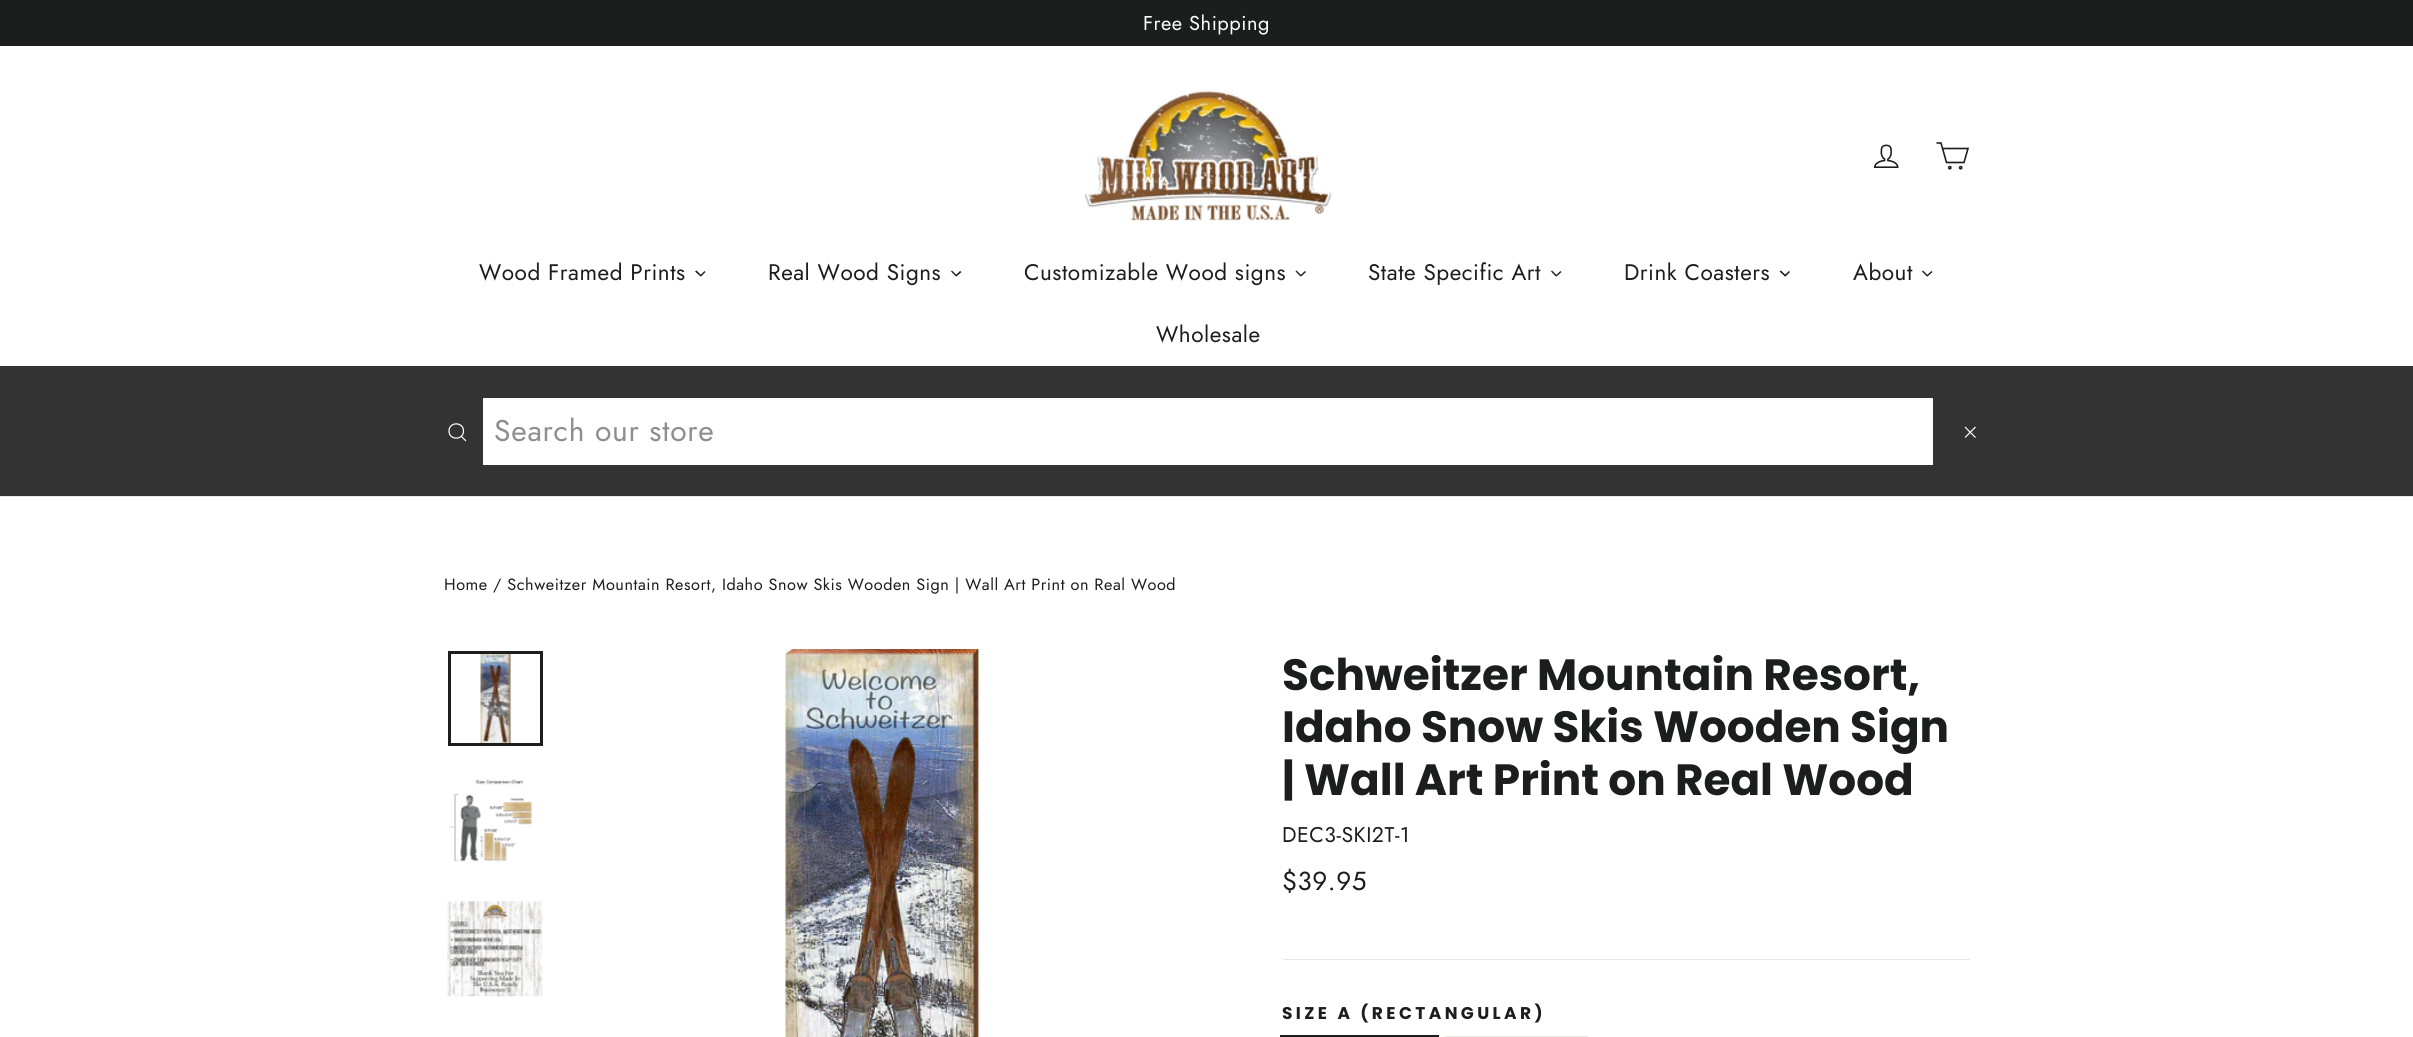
import math
import cairo

surface = cairo.ImageSurface(cairo.FORMAT_RGB24, 2413, 1037)
c = cairo.Context(surface)
options = cairo.FontOptions()
options.set_hint_metrics(cairo.HINT_METRICS_OFF)
options.set_hint_style(cairo.HINT_STYLE_NONE)
c.set_font_options(options)
c.set_miter_limit(4)
def C(code):
 c.set_source_rgb(*(v / 255 for v in bytes.fromhex(code[-6:])))
def F(family, size, italic, bold):
 c.select_font_face(family, cairo.FONT_SLANT_ITALIC if italic else cairo.FONT_SLANT_NORMAL, cairo.FONT_WEIGHT_BOLD if bold else cairo.FONT_WEIGHT_NORMAL)
 c.set_font_size(size)
def T(x, y, s):
 c.move_to(x, y)
 c.show_text(s)
def L(x, y, s, letter, word):
 c.move_to(x, y)
 for ch in s:
  c.show_text(ch)
  c.rel_move_to(letter + word * (ch == ' '), 0)
def R(x, y, w, h):
 c.rectangle(x, y, w, h)
 c.fill()
def I(path, x, y, w, h):
 c.save()
 c.set_source_surface(cairo.ImageSurface.create_from_png(path), x, y)
 c.rectangle(x, y, w, h)
 c.fill()
 c.restore()
C('ffffff')
c.paint()
C('1c1d1d')
R(0,0,2413,46)
F('Jost',20,0,0)
C('ffffff')
L(1143,30,'Free Shipping',.53,0)
C('e8e8e1')
R(0,496,2413,1)
I('1.png',1084,89,248,132)
I('2.png',1874,144,25,24)
c.new_path()
c.move_to(1942.5,148.5)
c.line_to(1968,148.5)
c.line_to(1964,162.5)
c.line_to(1946.5,162.5)
c.line_to(1941,143)
c.line_to(1936.5,143)
C('1c1d1d')
c.set_line_width(1.6)
c.stroke()
c.arc(1949.8,167.7,1.1,0,2 * math.pi)
c.stroke()
c.arc(1960.7,167.7,1.1,0,2 * math.pi)
c.stroke()
F('Jost',22.5,0,0)
L(479,280,'Wood Framed Prints',.53,0)
c.new_path()
c.move_to(704.5,271)
c.line_to(705.5,272)
c.line_to(701,276.5)
c.line_to(700,275.5)
c.close_path()
c.fill()
c.new_path()
c.move_to(696.5,270.5)
c.line_to(701.5,275.5)
c.line_to(700.5,276.5)
c.line_to(695,271.5)
c.close_path()
c.fill()
L(768,280,'Real Wood Signs',.53,0)
c.new_path()
c.move_to(960,271)
c.line_to(961.5,272)
c.line_to(956.5,276.5)
c.line_to(955.5,275.5)
c.close_path()
c.fill()
c.new_path()
c.move_to(952,270.5)
c.line_to(957,275.5)
c.line_to(956,276.5)
c.line_to(951,271.5)
c.close_path()
c.fill()
L(1024,280,'Customizable Wood signs',.53,0)
c.new_path()
c.move_to(1305,271)
c.line_to(1306,272)
c.line_to(1301,276.5)
c.line_to(1300,275.5)
c.close_path()
c.fill()
c.new_path()
c.move_to(1296.5,270.5)
c.line_to(1301.5,275.5)
c.line_to(1300.5,276.5)
c.line_to(1295.5,271.5)
c.close_path()
c.fill()
L(1368,280,'State Specific Art',.53,0)
c.new_path()
c.move_to(1560.5,271)
c.line_to(1561.5,272)
c.line_to(1556.5,276.5)
c.line_to(1555.5,275.5)
c.close_path()
c.fill()
c.new_path()
c.move_to(1552,270.5)
c.line_to(1557,275.5)
c.line_to(1556,276.5)
c.line_to(1551,271.5)
c.close_path()
c.fill()
L(1624,280,'Drink Coasters',.53,0)
c.new_path()
c.move_to(1789,271)
c.line_to(1790,272)
c.line_to(1785.5,276.5)
c.line_to(1784,275.5)
c.close_path()
c.fill()
c.new_path()
c.move_to(1781,270.5)
c.line_to(1786,275.5)
c.line_to(1785,276.5)
c.line_to(1779.5,271.5)
c.close_path()
c.fill()
L(1853,280,'About',.53,0)
c.new_path()
c.move_to(1931.5,271)
c.line_to(1932.5,272)
c.line_to(1927.5,276.5)
c.line_to(1926.5,275.5)
c.close_path()
c.fill()
c.new_path()
c.move_to(1923,270.5)
c.line_to(1928,275.5)
c.line_to(1927,276.5)
c.line_to(1922,271.5)
c.close_path()
c.fill()
L(1156,342,'Wholesale',.53,0)
C('333333')
R(0,366,2413,130)
c.new_path()
c.move_to(463.5,431)
c.curve_to(463.5,440.5,449,440.5,449,431)
c.curve_to(449,421.5,463.5,421.5,463.5,431)
c.close_path()
c.move_to(466,441)
c.line_to(461.5,436.5)
C('ffffff')
c.set_line_width(1.2)
c.stroke()
R(483,398,1450,67)
F('Jost',30,0,0)
C('8e8e8e')
L(494,441,'Search our store',.75,0)
c.new_path()
c.move_to(1965,427)
c.line_to(1975.5,437.5)
c.move_to(1975.5,427)
c.line_to(1965,437.5)
C('ffffff')
c.stroke()
F('Jost',16.25,0,0)
C('1c1d1d')
L(444,590,'Home / Schweitzer Mountain Resort, Idaho Snow Skis Wooden Sign | Wall Art Print on Real Wood',.53,0)
I('3.png',480,654,32,93)
c.rectangle(449.5,652.5,92,92)
c.set_line_width(3)
c.stroke()
I('4.png',449,779,83,83)
I('5.png',447,901,96,96)
I('6.png',783,649,200,388)
F('Poppins',43.75,0,1)
T(1282,690,'Schweitzer Mountain Resort,')
T(1282,742,'Idaho Snow Skis Wooden Sign')
T(1282,795,'| Wall Art Print on Real Wood')
F('Jost',21.25,0,0)
L(1282,842,'DEC3-SKI2T-1',.53,0)
F('Jost',26,0,0)
L(1282,890,'$39.95',.53,0)
C('e8e8e1')
R(1283,959,687,1)
F('Poppins',17,0,1)
C('1c1d1d')
L(1282,1019,'SIZE A (RECTANGULAR)',3.4,0)
c.rectangle(1281.5,1036.5,156,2)
c.stroke()
c.rectangle(1445.5,1036.5,142,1)
C('e8e8e1')
c.set_line_width(1)
c.stroke()
surface.write_to_png('o.png')
